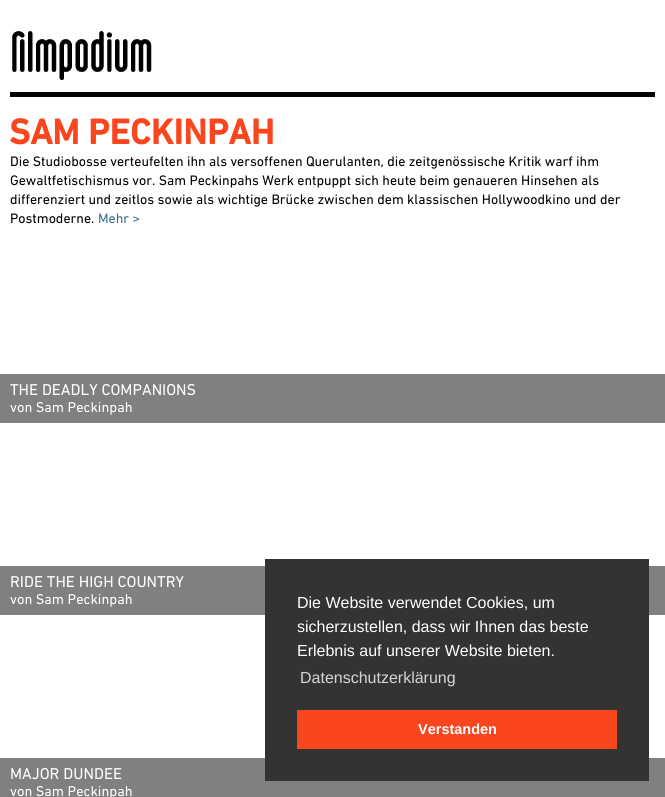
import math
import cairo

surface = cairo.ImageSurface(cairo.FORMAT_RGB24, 665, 797)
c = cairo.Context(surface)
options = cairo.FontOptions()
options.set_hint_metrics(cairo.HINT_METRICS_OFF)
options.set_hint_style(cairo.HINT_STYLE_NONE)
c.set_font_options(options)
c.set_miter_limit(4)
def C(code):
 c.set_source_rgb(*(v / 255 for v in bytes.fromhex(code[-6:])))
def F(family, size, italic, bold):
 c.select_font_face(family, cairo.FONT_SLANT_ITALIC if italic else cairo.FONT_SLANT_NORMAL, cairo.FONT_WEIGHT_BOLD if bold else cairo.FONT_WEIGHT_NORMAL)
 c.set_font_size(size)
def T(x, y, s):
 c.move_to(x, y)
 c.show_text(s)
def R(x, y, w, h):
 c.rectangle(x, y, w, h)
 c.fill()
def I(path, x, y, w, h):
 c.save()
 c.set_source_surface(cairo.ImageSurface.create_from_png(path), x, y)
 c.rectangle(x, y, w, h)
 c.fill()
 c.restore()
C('ffffff')
c.paint()
I('1.png',12,31,140,49)
C('000000')
R(10,92,645,5)
F('DIN Next',36,0,1)
C('fa461e')
T(9,144,'SAM PECKINPAH')
F('Din Next',14,0,0)
C('000000')
T(10,166,'Die Studiobosse verteufelten ihn als versoffenen Querulanten, die zeitgenössische Kritik warf ihm')
T(10,185,'Gewaltfetischismus vor. Sam Peckinpahs Werk entpuppt sich heute beim genaueren Hinsehen als')
T(10,204,'differenziert und zeitlos sowie als wichtige Brücke zwischen dem klassischen Hollywoodkino und der')
T(10,223,'Postmoderne.')
C('3c6e8c')
T(98,223,'Mehr >')
C('808080')
R(0,374,665,49)
F('Din Next',16,0,0)
C('ffffff')
T(10,395,'THE DEADLY COMPANIONS')
F('Din Next',14.5,0,0)
T(10,412,'von Sam Peckinpah')
C('808080')
R(0,566,665,49)
F('Din Next',16,0,0)
C('ffffff')
T(10,587,'RIDE THE HIGH COUNTRY')
F('Din Next',14.5,0,0)
T(10,604,'von Sam Peckinpah')
C('808080')
R(0,758,665,39)
F('Din Next',16,0,0)
C('ffffff')
T(10,779,'MAJOR DUNDEE')
F('Din Next',14.5,0,0)
T(10,796,'von Sam Peckinpah')
C('333333')
R(265,559,384,222)
F('Liberation Sans',16,0,0)
C('ffffff')
T(297,608,'Die Website verwendet Cookies, um')
T(297,632,'sicherzustellen, dass wir Ihnen das beste')
T(297,656,'Erlebnis auf unserer Website bieten.')
C('d6d6d6')
T(300,683,'Datenschutzerklärung')
C('fa461e')
R(297,710,320,39)
F('Liberation Sans',14.5,0,1)
C('ffffff')
T(418,734,'Verstanden')
surface.write_to_png('o.png')
